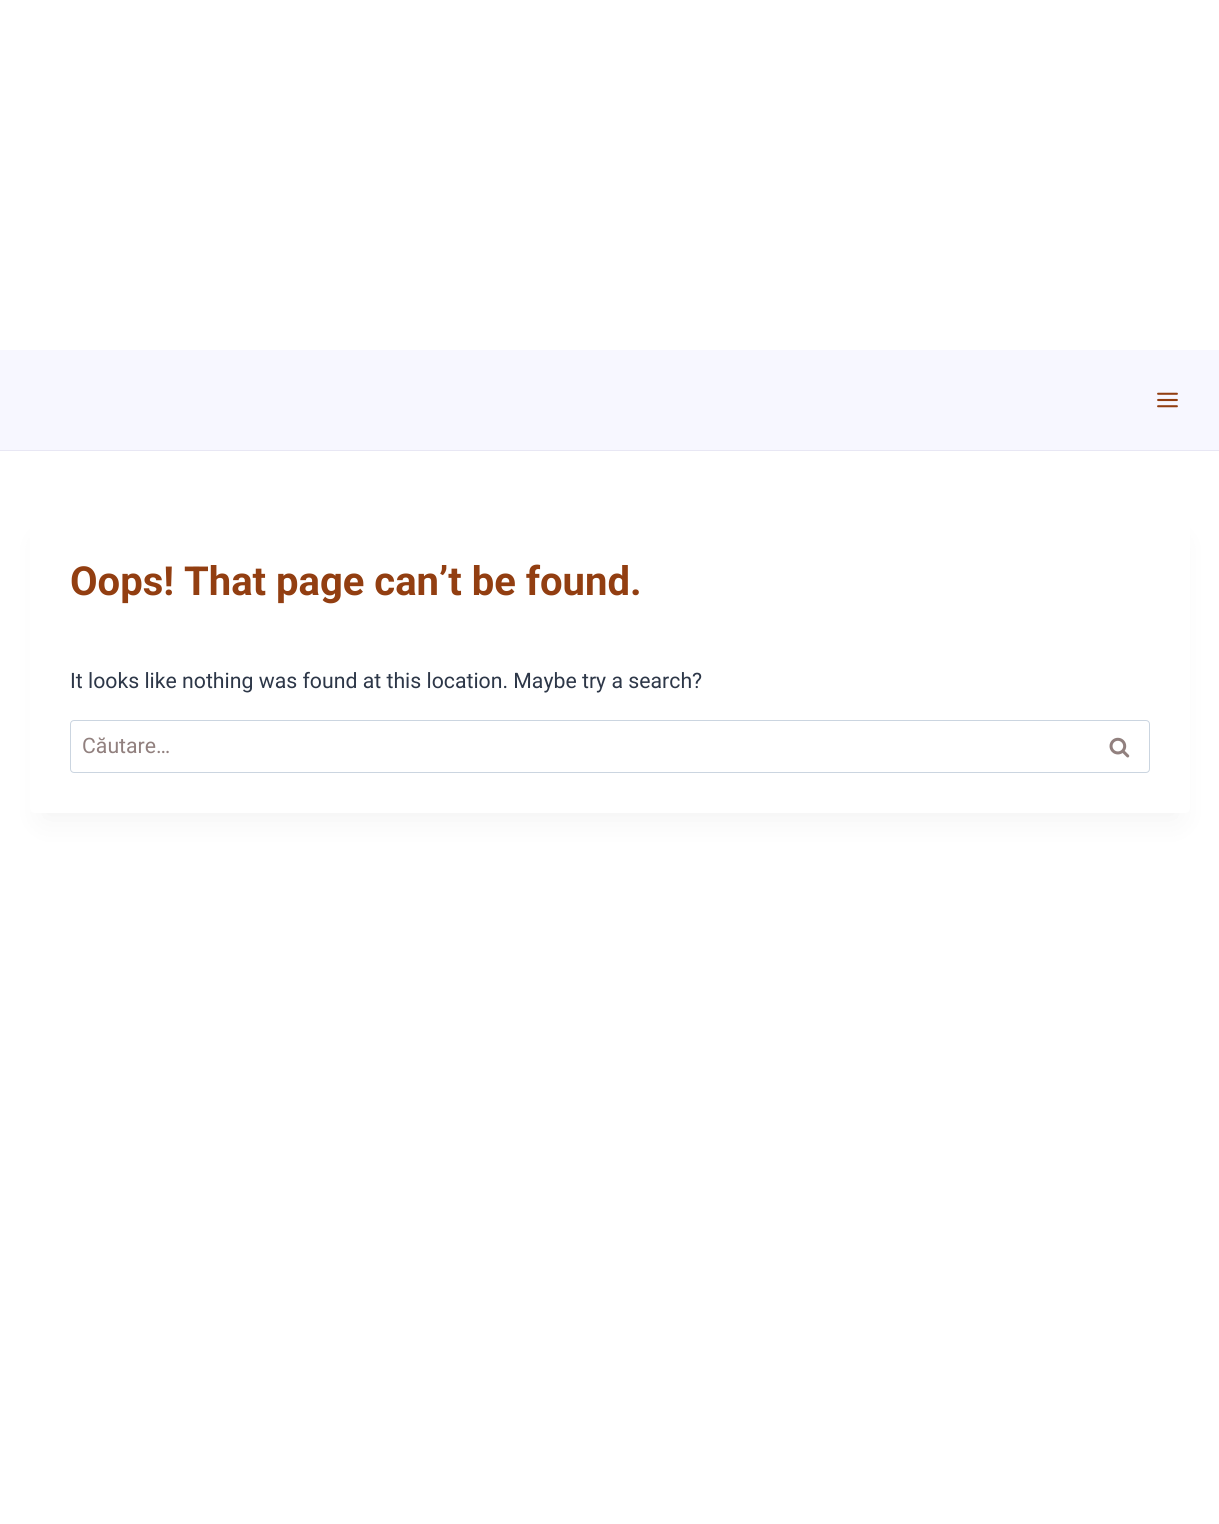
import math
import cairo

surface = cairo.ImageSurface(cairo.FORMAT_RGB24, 1219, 1524)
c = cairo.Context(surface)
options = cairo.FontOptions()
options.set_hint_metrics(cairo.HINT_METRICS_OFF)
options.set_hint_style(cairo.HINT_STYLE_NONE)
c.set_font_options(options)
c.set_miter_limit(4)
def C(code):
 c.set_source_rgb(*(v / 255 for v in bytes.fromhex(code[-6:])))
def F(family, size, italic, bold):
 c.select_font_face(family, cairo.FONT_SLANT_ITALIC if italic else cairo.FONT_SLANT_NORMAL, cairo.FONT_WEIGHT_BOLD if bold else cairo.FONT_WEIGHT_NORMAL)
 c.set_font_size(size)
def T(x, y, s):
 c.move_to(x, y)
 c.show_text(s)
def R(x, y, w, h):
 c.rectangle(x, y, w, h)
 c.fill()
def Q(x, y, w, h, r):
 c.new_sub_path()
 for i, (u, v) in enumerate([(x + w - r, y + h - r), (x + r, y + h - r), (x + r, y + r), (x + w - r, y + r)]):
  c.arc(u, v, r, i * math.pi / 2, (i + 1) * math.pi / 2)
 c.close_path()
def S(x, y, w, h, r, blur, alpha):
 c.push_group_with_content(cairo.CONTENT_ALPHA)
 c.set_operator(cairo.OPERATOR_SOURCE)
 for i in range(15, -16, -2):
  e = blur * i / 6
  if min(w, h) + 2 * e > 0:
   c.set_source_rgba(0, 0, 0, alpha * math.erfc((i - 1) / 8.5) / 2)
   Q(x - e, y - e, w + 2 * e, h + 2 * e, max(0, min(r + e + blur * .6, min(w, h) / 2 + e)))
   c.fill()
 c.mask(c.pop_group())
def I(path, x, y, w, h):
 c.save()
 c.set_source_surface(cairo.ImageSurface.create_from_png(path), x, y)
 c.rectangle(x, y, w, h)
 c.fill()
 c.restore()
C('ffffff')
c.paint()
C('f7f7ff')
R(0,350,1219,100)
C('e8e7f4')
R(0,450,1219,1)
I('1.png',1157,392,21,16)
C('000000')
S(43,543,1135,276,0,15.5,.05)
C('ffffff')
Q(30,511,1160,302,5)
c.fill()
F('Roboto',40,0,1)
C('923e11')
T(70,595,'Oops! That page can’t be found.')
F('Roboto',21.25,0,0)
C('2d3748')
T(70,688,'It looks like nothing was found at this location. Maybe try a search?')
Q(70.5,720.5,1079,52,3.5)
C('cbd5e0')
c.set_line_width(1)
c.stroke()
C('91807e')
T(82,753,'Căutare…')
I('2.png',1109,737,21,21)
surface.write_to_png('o.png')
